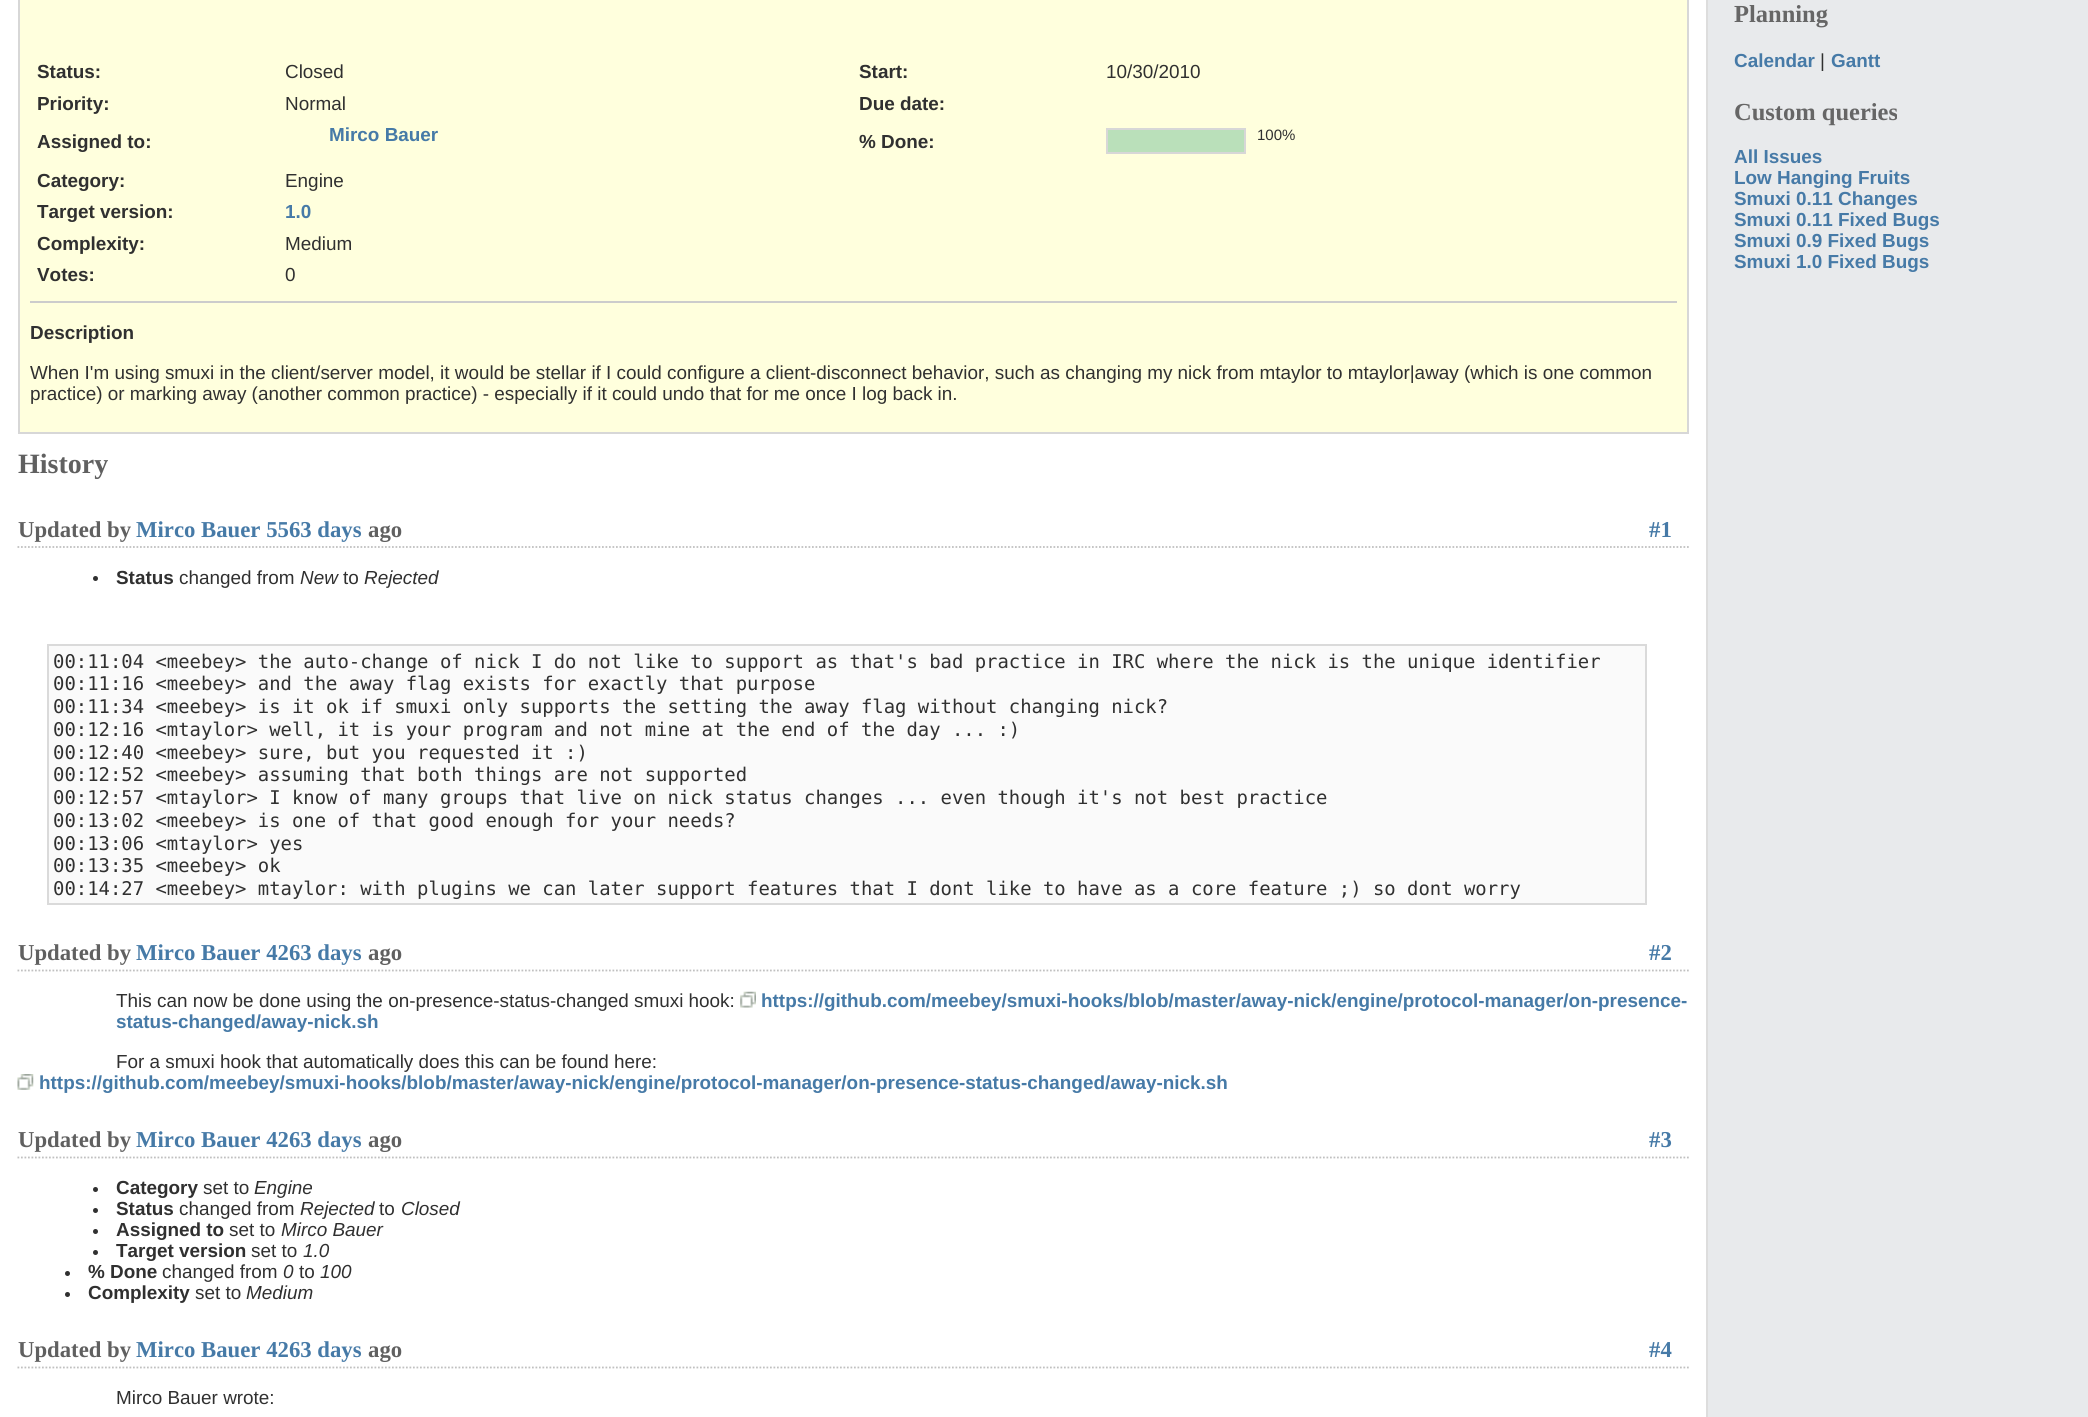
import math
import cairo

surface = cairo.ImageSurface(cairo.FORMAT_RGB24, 2088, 1417)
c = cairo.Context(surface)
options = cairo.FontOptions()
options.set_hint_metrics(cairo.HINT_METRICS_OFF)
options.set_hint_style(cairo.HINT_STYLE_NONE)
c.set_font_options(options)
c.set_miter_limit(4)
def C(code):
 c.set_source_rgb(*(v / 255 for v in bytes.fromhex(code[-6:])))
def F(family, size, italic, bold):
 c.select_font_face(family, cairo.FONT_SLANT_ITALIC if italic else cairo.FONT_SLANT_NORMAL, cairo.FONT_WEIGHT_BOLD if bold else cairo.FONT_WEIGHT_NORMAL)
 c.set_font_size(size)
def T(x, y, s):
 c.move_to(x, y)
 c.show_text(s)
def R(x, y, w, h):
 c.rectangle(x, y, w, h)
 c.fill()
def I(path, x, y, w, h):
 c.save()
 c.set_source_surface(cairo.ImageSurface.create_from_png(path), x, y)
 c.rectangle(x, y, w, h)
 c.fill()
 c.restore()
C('e8eaec')
c.paint()
C('ffffff')
R(0,0,1706,1417)
C('dddddd')
R(1706,0,2,1417)
C('ffffdd')
c.rectangle(19,-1,1669,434)
c.fill_preserve()
C('d7d7d7')
c.stroke()
F('Liberation Sans',18.9,0,1)
C('303030')
T(37,78,'Status:')
F('Liberation Sans',18.9,0,0)
T(285,78,'Closed')
F('Liberation Sans',18.9,0,1)
T(859,78,'Start:')
F('Liberation Sans',18.9,0,0)
T(1106,78,'10/30/2010')
F('Liberation Sans',18.9,0,1)
T(37,110,'Priority:')
F('Liberation Sans',18.9,0,0)
T(285,110,'Normal')
F('Liberation Sans',18.9,0,1)
T(859,110,'Due date:')
T(37,148,'Assigned to:')
C('467aa7')
T(329,141,'Mirco Bauer')
C('303030')
T(859,148,'% Done:')
C('d7d7d7')
R(1106,128,140,2)
R(1244,128,2,26)
R(1106,152,140,2)
R(1106,128,2,26)
C('bae0ba')
R(1108,130,136,22)
F('Liberation Sans',15,0,0)
C('303030')
T(1257,140,'100%')
F('Liberation Sans',18.9,0,1)
T(37,187,'Category:')
F('Liberation Sans',18.9,0,0)
T(285,187,'Engine')
F('Liberation Sans',18.9,0,1)
T(37,218,'Target version:')
C('467aa7')
T(285,218,'1.0')
C('303030')
T(37,250,'Complexity:')
F('Liberation Sans',18.9,0,0)
T(285,250,'Medium')
F('Liberation Sans',18.9,0,1)
T(37,281,'Votes:')
F('Liberation Sans',18.9,0,0)
T(285,281,'0')
C('cccccc')
R(30,301,1647,2)
F('Liberation Sans',18.9,0,1)
C('303030')
T(30,339,'Description')
F('Liberation Sans',18.9,0,0)
T(30,379,'When I\'m using smuxi in the client/server model, it would be stellar if I could configure a client-disconnect behavior, such as changing my nick from mtaylor to mtaylor|away (which is one common')
T(30,400,'practice) or marking away (another common practice) - especially if it could undo that for me once I log back in.')
F('Liberation Serif',28,0,1)
C('606060')
T(18,473,'History')
c.new_path()
c.move_to(17.5,547)
c.line_to(1689,547)
C('c0c0c0')
c.set_line_width(1.8)
c.set_dash([1.75,1.75])
c.stroke()
F('Liberation Serif',22.75,0,1)
C('606060')
T(18,537,'Updated by')
C('467aa7')
T(136,537,'Mirco Bauer 5563 days')
C('606060')
T(368,537,'ago')
C('467aa7')
T(1649,537,'#1')
C('303030')
c.new_path()
c.arc(95.5,578.5,2.5,0,2 * math.pi)
c.fill()
F('Liberation Sans',18.9,0,1)
T(116,584,'Status')
F('Liberation Sans',18.9,0,0)
T(179,584,'changed from')
F('Liberation Sans',18.9,1,0)
T(300,584,'New')
F('Liberation Sans',18.9,0,0)
T(343,584,'to')
F('Liberation Sans',18.9,1,0)
T(364,584,'Rejected')
C('fafafa')
c.rectangle(48,645,1598,259)
c.fill_preserve()
C('dadada')
c.set_line_width(2)
c.set_dash([])
c.stroke()
F('DejaVu Sans Mono',18.9,0,0)
C('303030')
T(53,668,'00:11:04 <meebey> the auto-change of nick I do not like to support as that\'s bad practice in IRC where the nick is the unique identifier')
T(53,690,'00:11:16 <meebey> and the away flag exists for exactly that purpose')
T(53,713,'00:11:34 <meebey> is it ok if smuxi only supports the setting the away flag without changing nick?')
T(53,736,'00:12:16 <mtaylor> well, it is your program and not mine at the end of the day ... :)')
T(53,759,'00:12:40 <meebey> sure, but you requested it :)')
T(53,781,'00:12:52 <meebey> assuming that both things are not supported')
T(53,804,'00:12:57 <mtaylor> I know of many groups that live on nick status changes ... even though it\'s not best practice')
T(53,827,'00:13:02 <meebey> is one of that good enough for your needs?')
T(53,850,'00:13:06 <mtaylor> yes')
T(53,872,'00:13:35 <meebey> ok')
T(53,895,'00:14:27 <meebey> mtaylor: with plugins we can later support features that I dont like to have as a core feature ;) so dont worry')
c.new_path()
c.move_to(17.5,970.5)
c.line_to(1689,970.5)
C('c0c0c0')
c.set_line_width(1.8)
c.set_dash([1.75,1.75])
c.stroke()
F('Liberation Serif',22.75,0,1)
C('606060')
T(18,960,'Updated by')
C('467aa7')
T(136,960,'Mirco Bauer 4263 days')
C('606060')
T(368,960,'ago')
C('467aa7')
T(1649,960,'#2')
F('Liberation Sans',18.9,0,0)
C('303030')
T(116,1007,'This can now be done using the on-presence-status-changed smuxi hook:')
I('1.png',740,991,16,17)
F('Liberation Sans',18.9,0,1)
C('467aa7')
T(761,1007,'https://github.com/meebey/smuxi-hooks/blob/master/away-nick/engine/protocol-manager/on-presence-')
T(116,1028,'status-changed/away-nick.sh')
F('Liberation Sans',18.9,0,0)
C('303030')
T(116,1068,'For a smuxi hook that automatically does this can be found here:')
I('2.png',17,1074,17,16)
F('Liberation Sans',18.9,0,1)
C('467aa7')
T(39,1089,'https://github.com/meebey/smuxi-hooks/blob/master/away-nick/engine/protocol-manager/on-presence-status-changed/away-nick.sh')
c.new_path()
c.move_to(17.5,1157.5)
c.line_to(1689,1157.5)
C('c0c0c0')
c.stroke()
F('Liberation Serif',22.75,0,1)
C('606060')
T(18,1147,'Updated by')
C('467aa7')
T(136,1147,'Mirco Bauer 4263 days')
C('606060')
T(368,1147,'ago')
C('467aa7')
T(1649,1147,'#3')
C('303030')
c.new_path()
c.arc(95.5,1189.5,2.5,0,2 * math.pi)
c.fill()
F('Liberation Sans',18.9,0,1)
T(116,1194,'Category')
F('Liberation Sans',18.9,0,0)
T(203,1194,'set to')
F('Liberation Sans',18.9,1,0)
T(254,1194,'Engine')
c.new_path()
c.arc(95.5,1210.5,2.5,0,2 * math.pi)
c.fill()
F('Liberation Sans',18.9,0,1)
T(116,1215,'Status')
F('Liberation Sans',18.9,0,0)
T(179,1215,'changed from')
F('Liberation Sans',18.9,1,0)
T(300,1215,'Rejected')
F('Liberation Sans',18.9,0,0)
T(379,1215,'to')
F('Liberation Sans',18.9,1,0)
T(401,1215,'Closed')
c.new_path()
c.arc(95.5,1231.5,2.5,0,2 * math.pi)
c.fill()
F('Liberation Sans',18.9,0,1)
T(116,1236,'Assigned to')
F('Liberation Sans',18.9,0,0)
T(229,1236,'set to')
F('Liberation Sans',18.9,1,0)
T(281,1236,'Mirco Bauer')
c.new_path()
c.arc(95.5,1252.5,2.5,0,2 * math.pi)
c.fill()
F('Liberation Sans',18.9,0,1)
T(116,1257,'Target version')
F('Liberation Sans',18.9,0,0)
T(251,1257,'set to')
F('Liberation Sans',18.9,1,0)
T(303,1257,'1.0')
c.new_path()
c.arc(67.5,1273.5,2.5,0,2 * math.pi)
c.fill()
F('Liberation Sans',18.9,0,1)
T(88,1278,'% Done')
F('Liberation Sans',18.9,0,0)
T(162,1278,'changed from')
F('Liberation Sans',18.9,1,0)
T(283,1278,'0')
F('Liberation Sans',18.9,0,0)
T(299,1278,'to')
F('Liberation Sans',18.9,1,0)
T(320,1278,'100')
c.new_path()
c.arc(67.5,1294.5,2.5,0,2 * math.pi)
c.fill()
F('Liberation Sans',18.9,0,1)
T(88,1299,'Complexity')
F('Liberation Sans',18.9,0,0)
T(195,1299,'set to')
F('Liberation Sans',18.9,1,0)
T(246,1299,'Medium')
c.new_path()
c.move_to(17.5,1367.5)
c.line_to(1689,1367.5)
C('c0c0c0')
c.stroke()
F('Liberation Serif',22.75,0,1)
C('606060')
T(18,1357,'Updated by')
C('467aa7')
T(136,1357,'Mirco Bauer 4263 days')
C('606060')
T(368,1357,'ago')
C('467aa7')
T(1649,1357,'#4')
F('Liberation Sans',18.9,0,0)
C('303030')
T(116,1404,'Mirco Bauer wrote:')
F('Liberation Serif',24.5,0,1)
C('666666')
T(1734,22,'Planning')
F('Liberation Sans',18.9,0,1)
C('467aa7')
T(1734,67,'Calendar')
F('Liberation Sans',18.9,0,0)
C('303030')
T(1820,67,'|')
F('Liberation Sans',18.9,0,1)
C('467aa7')
T(1831,67,'Gantt')
F('Liberation Serif',24.5,0,1)
C('666666')
T(1734,120,'Custom queries')
F('Liberation Sans',18.9,0,1)
C('467aa7')
T(1734,163,'All Issues')
T(1734,184,'Low Hanging Fruits')
T(1734,205,'Smuxi 0.11 Changes')
T(1734,226,'Smuxi 0.11 Fixed Bugs')
T(1734,247,'Smuxi 0.9 Fixed Bugs')
T(1734,268,'Smuxi 1.0 Fixed Bugs')
surface.write_to_png('o.png')
